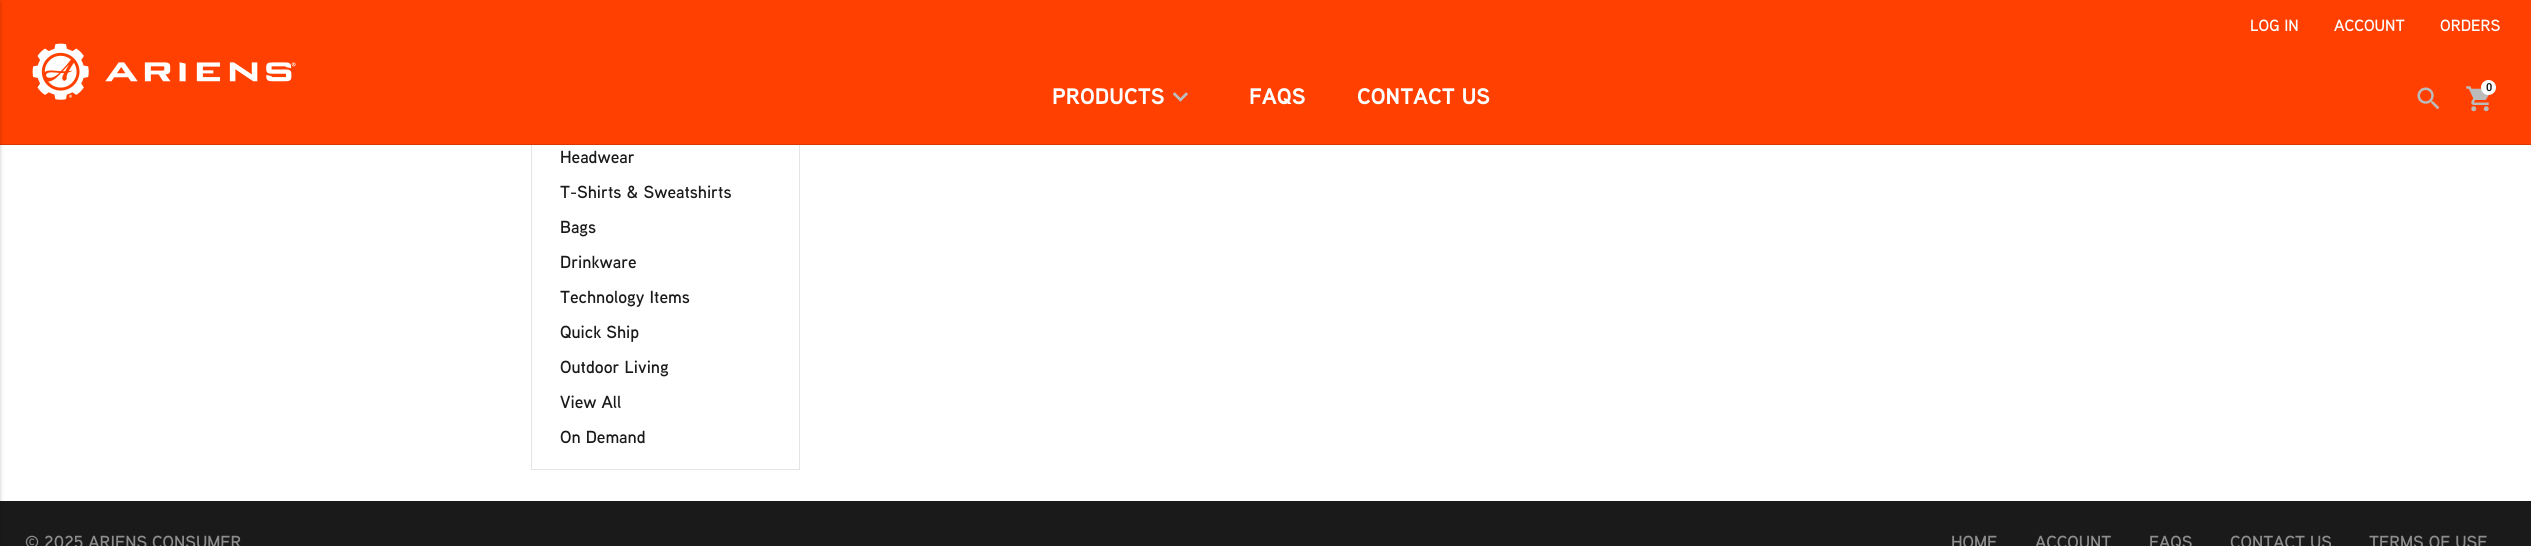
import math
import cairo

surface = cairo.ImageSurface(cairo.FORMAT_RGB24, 2531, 546)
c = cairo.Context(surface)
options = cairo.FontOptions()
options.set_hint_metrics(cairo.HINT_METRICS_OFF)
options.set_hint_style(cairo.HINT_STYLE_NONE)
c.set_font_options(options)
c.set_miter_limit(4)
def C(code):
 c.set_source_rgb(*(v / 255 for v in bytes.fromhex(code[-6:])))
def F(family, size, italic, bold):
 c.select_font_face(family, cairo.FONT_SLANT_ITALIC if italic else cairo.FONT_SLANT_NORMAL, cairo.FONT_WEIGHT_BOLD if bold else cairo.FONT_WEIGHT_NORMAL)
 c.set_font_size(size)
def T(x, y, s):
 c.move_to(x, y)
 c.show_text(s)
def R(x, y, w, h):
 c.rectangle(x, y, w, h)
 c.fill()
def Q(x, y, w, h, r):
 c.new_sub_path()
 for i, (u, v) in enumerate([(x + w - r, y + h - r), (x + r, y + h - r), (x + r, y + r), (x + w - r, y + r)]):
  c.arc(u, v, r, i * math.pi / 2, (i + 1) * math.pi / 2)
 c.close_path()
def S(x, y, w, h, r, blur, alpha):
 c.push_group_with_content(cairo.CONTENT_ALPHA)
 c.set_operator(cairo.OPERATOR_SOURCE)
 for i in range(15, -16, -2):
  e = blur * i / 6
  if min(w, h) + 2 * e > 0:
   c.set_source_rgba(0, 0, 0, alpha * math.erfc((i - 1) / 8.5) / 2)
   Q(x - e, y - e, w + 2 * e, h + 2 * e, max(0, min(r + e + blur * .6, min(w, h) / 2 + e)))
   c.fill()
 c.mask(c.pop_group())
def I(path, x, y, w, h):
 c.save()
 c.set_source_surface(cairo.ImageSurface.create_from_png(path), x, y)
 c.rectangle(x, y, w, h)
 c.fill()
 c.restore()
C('ffffff')
c.paint()
C('ff4000')
R(0,0,2531,144)
C('d93600')
R(0,144,2531,1)
C('1a1a1a')
R(0,501,2531,45)
C('000000')
S(-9,1,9,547,0,3,.12)
S(-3,3,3,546,0,1,.14)
F('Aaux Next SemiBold',16.25,0,0)
C('ffffff')
T(2250,31,'LOG IN')
T(2334,31,'ACCOUNT')
T(2440,31,'ORDERS')
I('1.png',32,43,264,57)
I('2.png',2417,87,23,23)
I('3.png',2466,86,24,26)
c.arc(2488.5,87.5,7.5,0,2 * math.pi)
c.fill()
F('Roboto SemiBold',11,0,0)
C('1a1a1a')
T(2486,91,'0')
F('Aaux Next',22.5,0,1)
C('ffffff')
T(1052,104,'PRODUCTS')
I('4.png',1173,92,15,10)
I('5.png',1173,92,15,10)
T(1249,104,'FAQS')
T(1357,104,'CONTACT US')
C('e4e5e7')
R(799,145,1,325)
R(531,469,269,1)
R(531,145,1,325)
F('Aaux Next SemiBold',17.5,0,0)
C('1a1a1a')
T(560,163,'Headwear')
T(560,198,'T-Shirts & Sweatshirts')
T(560,233,'Bags')
T(560,268,'Drinkware')
T(560,303,'Technology Items')
T(560,338,'Quick Ship')
T(560,373,'Outdoor Living')
T(560,408,'View All')
T(560,443,'On Demand')
C('8d8d8d')
T(25,548,'© 2025 ARIENS CONSUMER')
T(1951,548,'HOME')
T(2035,548,'ACCOUNT')
T(2149,548,'FAQS')
T(2230,548,'CONTACT US')
T(2369,548,'TERMS OF USE')
surface.write_to_png('o.png')
